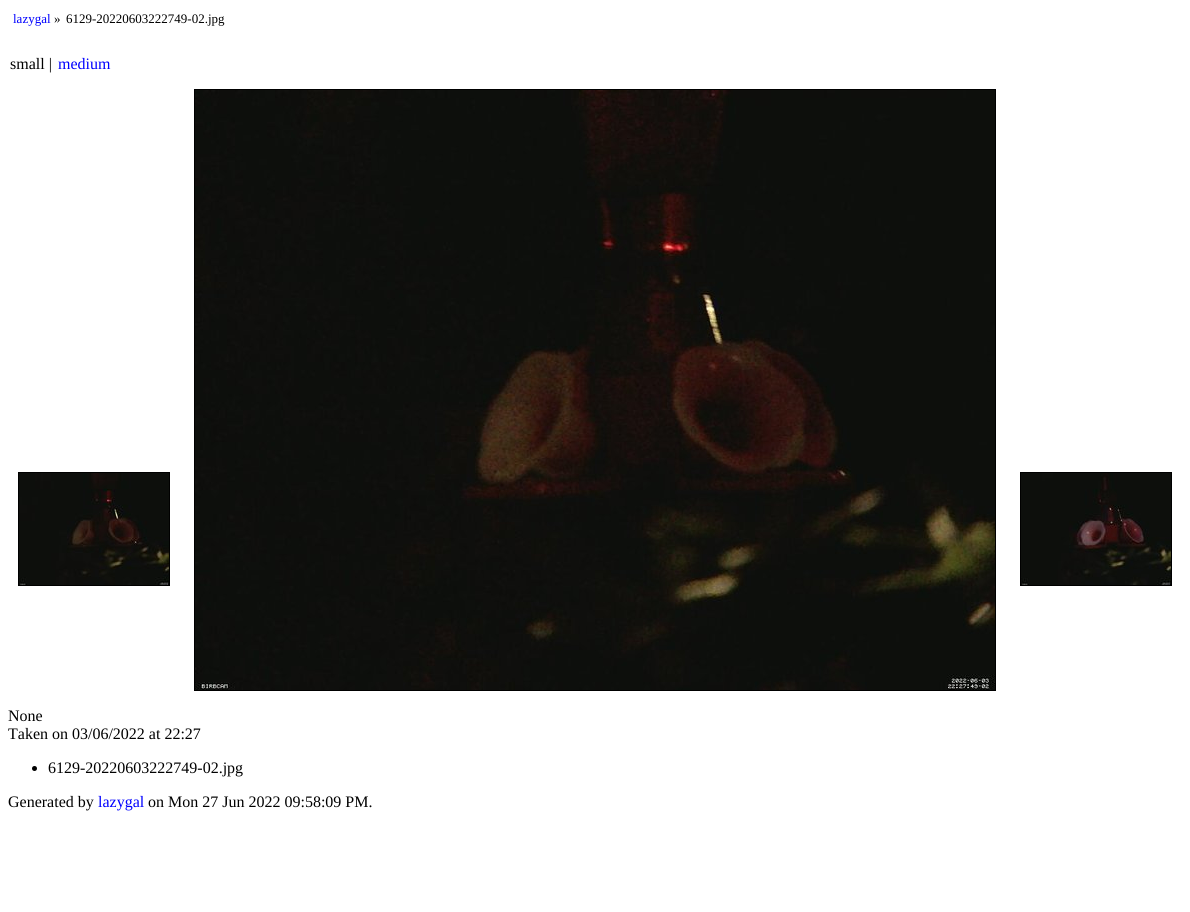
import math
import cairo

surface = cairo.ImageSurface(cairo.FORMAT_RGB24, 1190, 912)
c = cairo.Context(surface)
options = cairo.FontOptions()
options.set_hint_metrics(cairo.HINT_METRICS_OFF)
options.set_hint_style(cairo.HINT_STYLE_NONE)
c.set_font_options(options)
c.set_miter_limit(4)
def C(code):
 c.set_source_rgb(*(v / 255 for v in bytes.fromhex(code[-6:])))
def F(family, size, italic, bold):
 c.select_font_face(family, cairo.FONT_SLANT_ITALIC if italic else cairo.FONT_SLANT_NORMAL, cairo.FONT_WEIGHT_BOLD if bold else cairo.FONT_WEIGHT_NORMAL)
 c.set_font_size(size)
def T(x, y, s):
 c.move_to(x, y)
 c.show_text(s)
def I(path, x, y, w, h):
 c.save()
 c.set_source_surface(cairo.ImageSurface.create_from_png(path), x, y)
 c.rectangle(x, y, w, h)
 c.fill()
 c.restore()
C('ffffff')
c.paint()
F('Liberation Serif',13,0,0)
C('0000ff')
T(13,23,'lazygal')
C('000000')
T(54,23,'»')
T(66,23,'6129-20220603222749-02.jpg')
F('Liberation Serif',16,0,0)
T(10,69,'small |')
C('0000ff')
T(58,69,'medium')
c.rectangle(18.5,472.5,151,113)
C('000000')
c.set_line_width(1)
c.stroke()
I('1.png',19,473,150,112)
c.rectangle(1020.5,472.5,151,113)
c.stroke()
I('2.png',1021,473,150,112)
c.rectangle(194.5,89.5,801,601)
c.stroke()
I('3.png',195,90,800,600)
T(8,721,'None')
T(8,739,'Taken on 03/06/2022 at 22:27')
c.new_path()
c.arc(34.5,768.5,2.5,0,2 * math.pi)
c.fill()
T(48,773,'6129-20220603222749-02.jpg')
T(8,807,'Generated by')
C('0000ff')
T(98,807,'lazygal')
C('000000')
T(148,807,'on Mon 27 Jun 2022 09:58:09 PM.')
surface.write_to_png('o.png')
